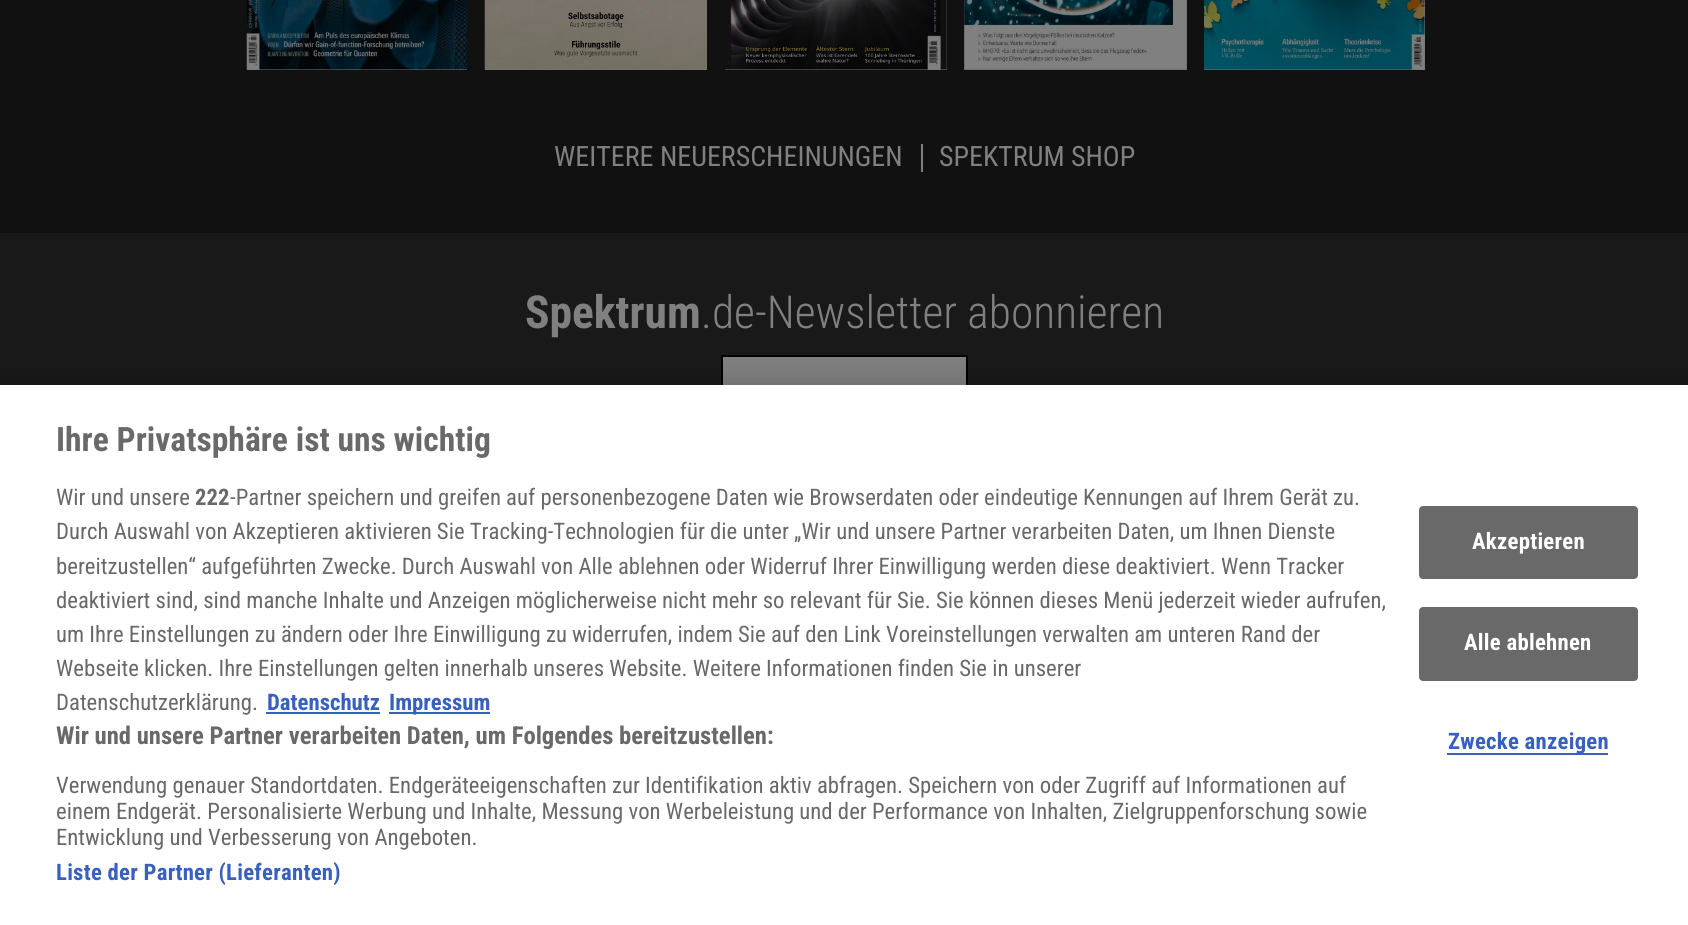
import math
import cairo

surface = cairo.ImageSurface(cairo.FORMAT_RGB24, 1688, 925)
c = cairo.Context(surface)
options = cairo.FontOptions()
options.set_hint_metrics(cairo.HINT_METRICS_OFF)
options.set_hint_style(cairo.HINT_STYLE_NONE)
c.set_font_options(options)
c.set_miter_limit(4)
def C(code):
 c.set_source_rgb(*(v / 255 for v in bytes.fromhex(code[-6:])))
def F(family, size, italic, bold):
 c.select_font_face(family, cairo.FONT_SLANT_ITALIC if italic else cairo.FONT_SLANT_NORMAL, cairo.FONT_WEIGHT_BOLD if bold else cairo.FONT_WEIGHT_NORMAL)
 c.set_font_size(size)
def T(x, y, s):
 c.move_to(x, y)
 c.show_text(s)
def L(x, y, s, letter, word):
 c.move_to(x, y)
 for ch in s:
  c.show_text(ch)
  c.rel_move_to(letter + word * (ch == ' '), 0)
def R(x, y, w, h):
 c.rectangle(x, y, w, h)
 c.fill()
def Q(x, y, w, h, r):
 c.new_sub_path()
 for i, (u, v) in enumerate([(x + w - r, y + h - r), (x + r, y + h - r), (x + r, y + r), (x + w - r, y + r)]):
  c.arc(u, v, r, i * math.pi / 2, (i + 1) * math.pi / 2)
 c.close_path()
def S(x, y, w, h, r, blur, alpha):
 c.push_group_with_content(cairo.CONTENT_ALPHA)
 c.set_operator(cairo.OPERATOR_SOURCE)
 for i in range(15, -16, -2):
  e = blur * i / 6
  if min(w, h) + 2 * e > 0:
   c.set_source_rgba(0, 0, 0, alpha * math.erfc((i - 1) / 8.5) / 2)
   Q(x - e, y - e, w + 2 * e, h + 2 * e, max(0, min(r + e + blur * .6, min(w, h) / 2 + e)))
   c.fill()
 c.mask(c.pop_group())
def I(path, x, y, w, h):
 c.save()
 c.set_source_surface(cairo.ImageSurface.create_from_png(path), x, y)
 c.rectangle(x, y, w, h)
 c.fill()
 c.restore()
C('111111')
c.paint()
C('777777')
R(247,69,220,1)
I('1.png',246,0,222,70)
R(485,69,222,1)
I('2.png',484,0,223,70)
R(725,0,222,70)
I('3.png',725,0,222,70)
R(964,0,223,70)
I('4.png',964,0,223,70)
R(1204,0,221,70)
I('5.png',1204,0,221,70)
C('808080')
R(921,144,2,28)
F('Roboto Condensed',28,0,0)
T(554,166,'WEITERE NEUERSCHEINUNGEN')
T(939,166,'SPEKTRUM SHOP')
C('191919')
R(0,233,1688,152)
F('Roboto Condensed',45.5,0,1)
C('808080')
T(525,328,'Spektrum')
F('Roboto Condensed Light',45.5,0,0)
T(701,328,'.de-Newsletter abonnieren')
R(723,357,243,28)
c.rectangle(722,356,245,70)
C('000000')
c.stroke()
C('000000')
S(0,385,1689,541,0,16,.2)
C('ffffff')
R(0,385,1688,540)
F('Roboto Condensed',33.6,0,1)
C('696969')
T(56,451,'Ihre Privatsphäre ist uns wichtig')
F('Roboto Condensed',22.75,0,0)
T(56,505,'Wir und unsere')
F('Roboto Condensed',22.75,0,1)
T(195,505,'222')
F('Roboto Condensed',22.75,0,0)
T(230,505,'-Partner speichern und greifen auf personenbezogene Daten wie Browserdaten oder eindeutige Kennungen auf Ihrem Gerät zu.')
T(56,539,'Durch Auswahl von Akzeptieren aktivieren Sie Tracking-Technologien für die unter „Wir und unsere Partner verarbeiten Daten, um Ihnen Dienste')
T(56,574,'bereitzustellen“ aufgeführten Zwecke. Durch Auswahl von Alle ablehnen oder Widerruf Ihrer Einwilligung werden diese deaktiviert. Wenn Tracker')
T(56,608,'deaktiviert sind, sind manche Inhalte und Anzeigen möglicherweise nicht mehr so relevant für Sie. Sie können dieses Menü jederzeit wieder aufrufen,')
T(56,642,'um Ihre Einstellungen zu ändern oder Ihre Einwilligung zu widerrufen, indem Sie auf den Link Voreinstellungen verwalten am unteren Rand der')
T(56,676,'Webseite klicken. Ihre Einstellungen gelten innerhalb unseres Website. Weitere Informationen finden Sie in unserer')
T(56,710,'Datenschutzerklärung.')
F('Roboto Condensed',22.75,0,1)
C('3860be')
T(267,710,'Datenschutz')
R(266,712,114,2)
R(389,712,101,2)
T(389,710,'Impressum')
F('Roboto Condensed',24.65,0,1)
C('696969')
T(56,744,'Wir und unsere Partner verarbeiten Daten, um Folgendes bereitzustellen:')
F('Roboto Condensed',22.75,0,0)
T(56,793,'Verwendung genauer Standortdaten. Endgeräteeigenschaften zur Identifikation aktiv abfragen. Speichern von oder Zugriff auf Informationen auf')
T(56,819,'einem Endgerät. Personalisierte Werbung und Inhalte, Messung von Werbeleistung und der Performance von Inhalten, Zielgruppenforschung sowie')
T(56,845,'Entwicklung und Verbesserung von Angeboten.')
F('Roboto Condensed',22.75,0,1)
C('3860be')
L(56,880,'Liste der Partner (Lieferanten)',.25,0)
C('696969')
Q(1420,507,217,71,3)
c.fill_preserve()
c.stroke()
C('ffffff')
L(1472,549,'Akzeptieren',.25,0)
C('696969')
Q(1420,608,217,72,3)
c.fill_preserve()
c.stroke()
C('ffffff')
L(1464,650,'Alle ablehnen',.25,0)
C('3860be')
R(1447,753,161,2)
L(1448,749,'Zwecke anzeigen',.25,0)
surface.write_to_png('o.png')
